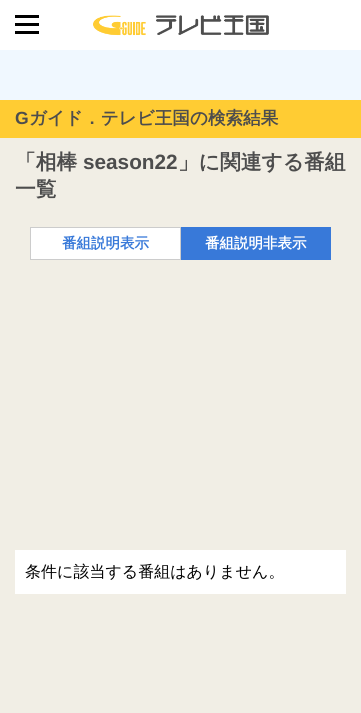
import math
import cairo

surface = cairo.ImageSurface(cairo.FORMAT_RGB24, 361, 713)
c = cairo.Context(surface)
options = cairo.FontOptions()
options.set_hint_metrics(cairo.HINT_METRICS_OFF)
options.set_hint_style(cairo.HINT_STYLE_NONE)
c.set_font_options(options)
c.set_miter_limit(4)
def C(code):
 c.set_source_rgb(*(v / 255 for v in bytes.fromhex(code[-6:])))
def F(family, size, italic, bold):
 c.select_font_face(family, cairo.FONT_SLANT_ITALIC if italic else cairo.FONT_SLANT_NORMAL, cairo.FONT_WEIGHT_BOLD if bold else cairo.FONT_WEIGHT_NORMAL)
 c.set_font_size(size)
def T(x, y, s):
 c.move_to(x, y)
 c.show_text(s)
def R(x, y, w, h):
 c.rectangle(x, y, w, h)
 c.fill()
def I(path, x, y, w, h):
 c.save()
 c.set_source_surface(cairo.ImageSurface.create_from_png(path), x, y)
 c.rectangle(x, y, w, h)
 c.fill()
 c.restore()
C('ffffff')
c.paint()
C('000000')
R(15,15,24,3)
R(15,23,24,3)
R(15,31,24,3)
I('1.png',93,15,176,21)
C('f0f8ff')
R(0,50,361,50)
C('f1eee5')
R(0,138,361,575)
C('ffcc33')
R(0,100,361,38)
F('Liberation Sans',17.6,0,1)
C('4d4d4d')
T(15,124,'G')
F('WenQuanYi Zen Hei',17.6,0,1)
T(29,124,'ガイド．テレビ王国の検索結果')
F('WenQuanYi Zen Hei',20.75,0,1)
T(15,169,'「相棒')
F('Liberation Sans',20.75,0,1)
T(83,169,'season22')
F('WenQuanYi Zen Hei',20.75,0,1)
T(178,169,'」に関連する番組')
T(15,196,'一覧')
C('ffffff')
c.rectangle(30.5,227.5,150,32)
c.fill_preserve()
C('cccccc')
c.set_line_width(1)
c.stroke()
F('WenQuanYi Zen Hei',14.5,0,1)
C('3879d9')
T(62,248,'番組説明表示')
R(181,227,150,33)
C('ffffff')
T(205,248,'番組説明非表示')
R(15,550,331,44)
F('WenQuanYi Zen Hei Medium',16,0,0)
C('000000')
T(25,577,'条件に該当する番組はありません。')
surface.write_to_png('o.png')
